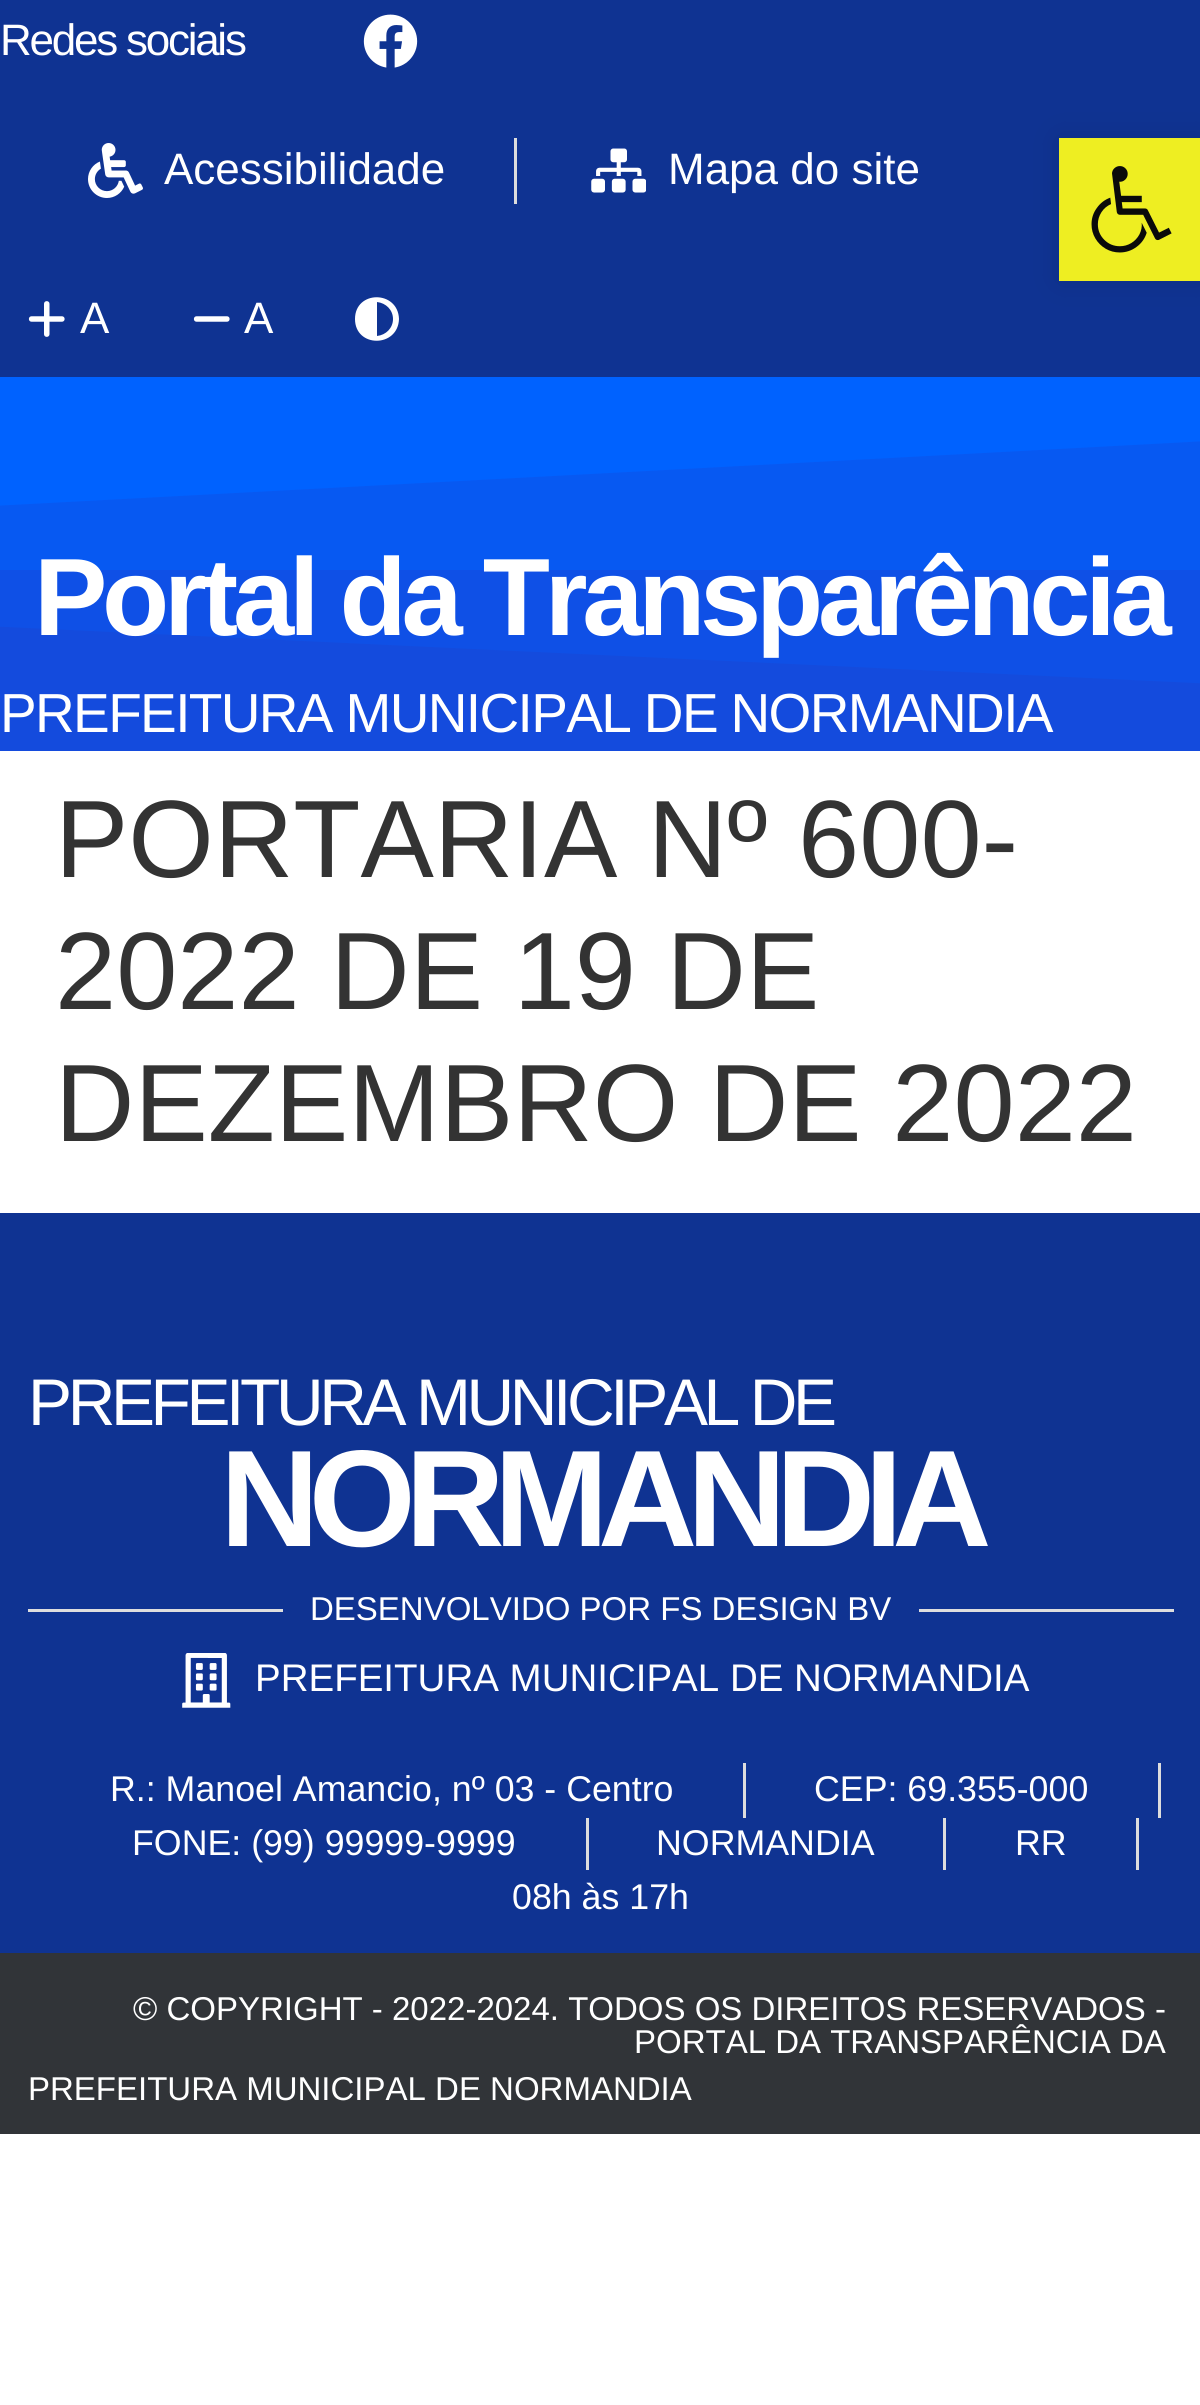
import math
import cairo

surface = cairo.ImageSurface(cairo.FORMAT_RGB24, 1200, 2405)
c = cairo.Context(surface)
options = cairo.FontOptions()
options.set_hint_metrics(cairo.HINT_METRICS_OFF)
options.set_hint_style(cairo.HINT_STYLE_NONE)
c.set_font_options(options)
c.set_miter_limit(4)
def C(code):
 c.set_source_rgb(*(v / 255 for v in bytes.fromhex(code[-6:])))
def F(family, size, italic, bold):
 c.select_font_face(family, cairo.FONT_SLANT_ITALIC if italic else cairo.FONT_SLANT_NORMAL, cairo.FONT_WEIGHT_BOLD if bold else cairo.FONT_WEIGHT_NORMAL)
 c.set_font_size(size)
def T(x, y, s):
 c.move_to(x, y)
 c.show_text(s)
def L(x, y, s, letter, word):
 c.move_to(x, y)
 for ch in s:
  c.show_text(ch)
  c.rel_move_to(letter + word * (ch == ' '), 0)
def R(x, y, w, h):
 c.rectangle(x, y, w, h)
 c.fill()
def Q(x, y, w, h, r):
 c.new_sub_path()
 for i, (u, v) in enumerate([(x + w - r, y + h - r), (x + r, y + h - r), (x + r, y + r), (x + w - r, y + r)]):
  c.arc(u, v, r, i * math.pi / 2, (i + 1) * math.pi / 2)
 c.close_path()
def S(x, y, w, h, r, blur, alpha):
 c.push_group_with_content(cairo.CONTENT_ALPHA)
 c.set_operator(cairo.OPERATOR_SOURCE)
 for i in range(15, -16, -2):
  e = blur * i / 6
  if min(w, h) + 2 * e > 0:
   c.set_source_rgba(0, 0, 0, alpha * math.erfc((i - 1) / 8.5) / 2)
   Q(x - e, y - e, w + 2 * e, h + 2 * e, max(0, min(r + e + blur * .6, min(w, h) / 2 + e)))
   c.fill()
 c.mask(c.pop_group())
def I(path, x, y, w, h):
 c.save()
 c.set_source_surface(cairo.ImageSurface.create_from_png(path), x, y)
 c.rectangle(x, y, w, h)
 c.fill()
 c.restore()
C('ffffff')
c.paint()
C('0f3392')
R(0,0,1200,377)
F('Liberation Sans',44,0,0)
C('ffffff')
L(0,55,'Redes sociais',-2.25,0)
I('1.png',363,14,55,54)
I('2.png',88,143,55,55)
T(164,184,'Acessibilidade')
C('dddddd')
R(514,138,3,66)
I('3.png',591,148,55,45)
C('ffffff')
T(668,184,'Mapa do site')
I('4.png',28,301,37,36)
T(80,333,'A')
I('5.png',193,316,37,6)
T(244,333,'A')
c.new_path()
c.move_to(393,319)
c.curve_to(393,310,386,303,377,302)
c.line_to(377,336)
c.curve_to(386,335,393,328,393,319)
c.close_path()
c.move_to(399,319)
c.curve_to(398,348,355,348,355,319)
c.curve_to(355,290,398,290,399,319)
c.close_path()
c.fill()
C('144bdd')
R(0,570,1200,181)
C('0a57ee')
R(0,441,1200,129)
C('0063ff')
c.new_path()
c.move_to(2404,377)
c.line_to(-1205,377)
c.line_to(-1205,570)
c.close_path()
c.fill()
c.set_source_rgba(0,0.388,1,0.25)
c.new_path()
c.move_to(-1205,377)
c.line_to(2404,377)
c.line_to(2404,740)
c.line_to(-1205,570)
c.close_path()
c.fill()
F('Liberation Sans',110,0,1)
C('ffffff')
L(34,635,'Portal da Transparência',-5.25,0)
F('Liberation Sans',55,0,0)
L(0,732,'PREFEITURA MUNICIPAL DE NORMANDIA',-1.65,0)
C('000000')
S(1059,138,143,143,0,14,.1)
C('eeee22')
R(1059,138,141,143)
I('6.png',1091,166,81,87)
F('Liberation Sans',110,0,0)
C('333333')
T(55,877,'PORTARIA Nº 600-')
T(55,1009,'2022 DE 19 DE')
T(55,1141,'DEZEMBRO DE 2022')
C('0f3392')
R(0,1213,1200,740)
F('Liberation Sans',66,0,0)
C('ffffff')
L(28,1425,'PREFEITURA MUNICIPAL DE',-4.4,0)
F('Liberation Sans',137.5,0,1)
L(220,1546,'NORMANDIA',-10.5,0)
C('dedede')
R(28,1609,255,3)
F('Liberation Sans',33,0,0)
C('ffffff')
T(310,1620,'DESENVOLVIDO POR FS DESIGN BV')
C('dedede')
R(919,1609,255,3)
I('7.png',182,1653,49,55)
F('Liberation Sans',38.5,0,0)
C('ffffff')
T(255,1691,'PREFEITURA MUNICIPAL DE NORMANDIA')
F('Liberation Sans',35.75,0,0)
T(110,1801,'R.: Manoel Amancio, nº 03 - Centro')
C('dddddd')
R(743,1763,3,55)
C('ffffff')
T(814,1801,'CEP: 69.355-000')
C('dddddd')
R(1158,1763,3,55)
C('ffffff')
T(132,1855,'FONE: (99) 99999-9999')
C('dddddd')
R(586,1818,3,52)
C('ffffff')
T(656,1855,'NORMANDIA')
C('dddddd')
R(943,1818,3,52)
C('ffffff')
T(1015,1855,'RR')
C('dddddd')
R(1136,1818,3,52)
C('ffffff')
T(512,1909,'08h às 17h')
C('313438')
R(0,1953,1200,181)
F('Liberation Sans',33,0,0)
C('ffffff')
T(133,2020,'© COPYRIGHT - 2022-2024. TODOS OS DIREITOS RESERVADOS -')
T(634,2053,'PORTAL DA TRANSPARÊNCIA DA')
T(28,2100,'PREFEITURA MUNICIPAL DE NORMANDIA')
surface.write_to_png('o.png')
